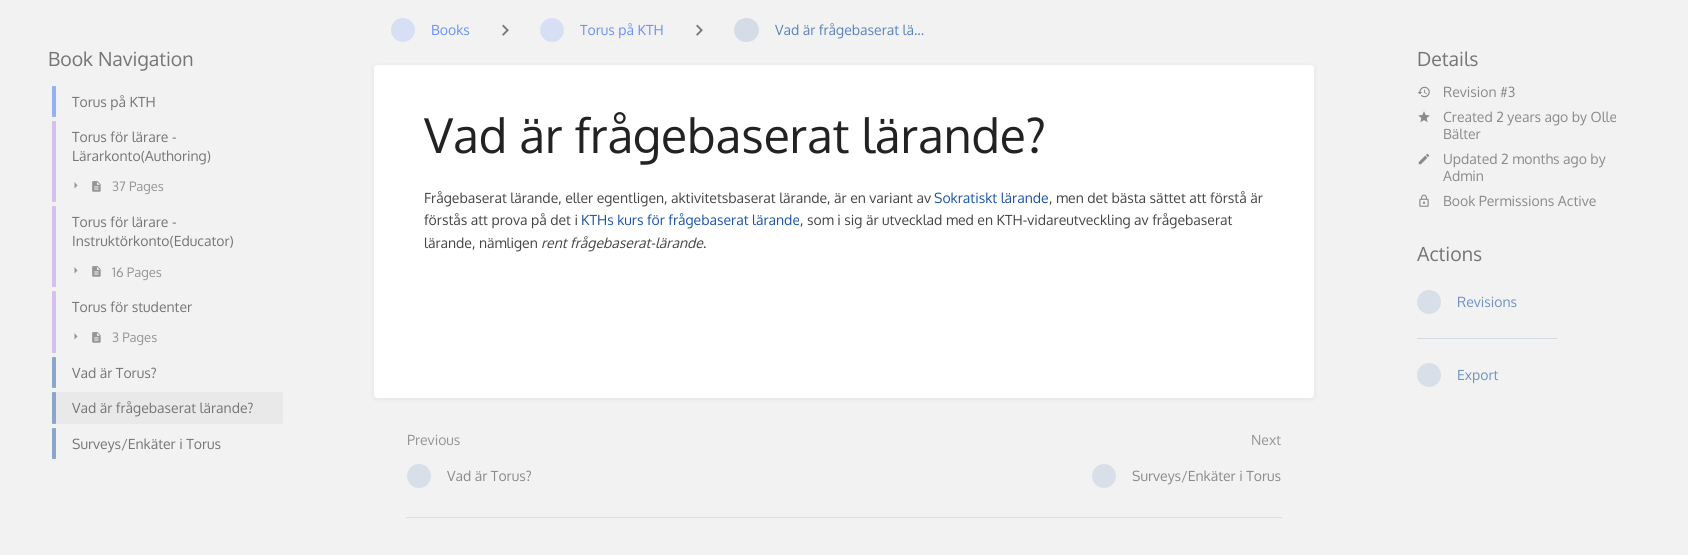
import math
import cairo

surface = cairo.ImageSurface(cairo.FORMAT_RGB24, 1688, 555)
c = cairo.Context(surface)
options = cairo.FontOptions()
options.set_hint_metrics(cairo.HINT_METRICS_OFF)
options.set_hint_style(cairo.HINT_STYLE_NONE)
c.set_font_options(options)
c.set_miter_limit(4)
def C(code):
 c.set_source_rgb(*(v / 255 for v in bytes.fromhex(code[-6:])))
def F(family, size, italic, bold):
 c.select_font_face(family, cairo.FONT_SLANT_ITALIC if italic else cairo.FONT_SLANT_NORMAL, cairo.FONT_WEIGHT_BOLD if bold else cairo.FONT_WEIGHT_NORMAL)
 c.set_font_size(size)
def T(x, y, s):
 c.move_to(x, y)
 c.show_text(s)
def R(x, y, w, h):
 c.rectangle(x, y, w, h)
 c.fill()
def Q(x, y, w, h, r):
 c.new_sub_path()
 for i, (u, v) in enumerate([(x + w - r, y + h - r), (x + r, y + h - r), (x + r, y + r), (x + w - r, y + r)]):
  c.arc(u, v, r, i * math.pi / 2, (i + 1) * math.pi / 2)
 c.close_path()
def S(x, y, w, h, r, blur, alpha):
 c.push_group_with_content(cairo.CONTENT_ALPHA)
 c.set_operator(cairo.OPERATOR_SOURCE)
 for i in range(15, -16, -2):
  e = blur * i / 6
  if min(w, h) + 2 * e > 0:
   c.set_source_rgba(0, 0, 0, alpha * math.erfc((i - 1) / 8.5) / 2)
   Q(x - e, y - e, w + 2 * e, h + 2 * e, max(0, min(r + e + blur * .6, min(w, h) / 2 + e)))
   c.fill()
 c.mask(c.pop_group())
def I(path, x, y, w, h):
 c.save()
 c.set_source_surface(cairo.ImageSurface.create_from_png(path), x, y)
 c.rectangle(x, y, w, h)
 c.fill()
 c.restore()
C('f2f2f2')
c.paint()
F('Oxygen',19.5,0,0)
C('757575')
T(48,66,'Book Navigation')
C('94b0f8')
Q(52,86,4,31,1)
c.fill()
F('Oxygen',14,0,0)
C('757575')
T(72,107,'Torus på KTH')
C('d4bfef')
Q(52,121,4,51,1)
c.fill()
C('757575')
T(72,142,'Torus för lärare -')
T(72,161,'Lärarkonto(Authoring)')
C('d4bfef')
Q(52,170,4,32,1)
c.fill()
C('959595')
c.new_path()
c.move_to(74.5,188.5)
c.line_to(77.5,185.5)
c.line_to(74.5,182)
c.close_path()
c.fill()
I('1.png',92,181,9,11)
F('Oxygen',13,0,0)
T(112,191,'37 Pages')
C('d4bfef')
Q(52,206,4,51,1)
c.fill()
F('Oxygen',14,0,0)
C('757575')
T(72,227,'Torus för lärare -')
T(72,246,'Instruktörkonto(Educator)')
C('d4bfef')
Q(52,255,4,32,1)
c.fill()
C('959595')
c.new_path()
c.move_to(74.5,273.5)
c.line_to(77.5,270.5)
c.line_to(74.5,267)
c.close_path()
c.fill()
I('1.png',92,266,9,11)
F('Oxygen',13,0,0)
T(112,277,'16 Pages')
C('d4bfef')
Q(52,291,4,32,1)
c.fill()
F('Oxygen',14,0,0)
C('757575')
T(72,312,'Torus för studenter')
C('d4bfef')
Q(52,321,4,32,1)
c.fill()
C('959595')
c.new_path()
c.move_to(74.5,339.5)
c.line_to(77.5,336.5)
c.line_to(74.5,333)
c.close_path()
c.fill()
I('1.png',92,332,9,11)
F('Oxygen',13,0,0)
T(112,342,'3 Pages')
C('8aa6ce')
Q(52,357,4,31,1)
c.fill()
F('Oxygen',14,0,0)
C('757575')
T(72,378,'Vad är Torus?')
C('e9e9e9')
c.new_path()
c.move_to(52,392)
c.line_to(280,392)
c.curve_to(281,392,283,393,283,393)
c.line_to(283,423)
c.curve_to(283,423,281,424,280,424)
c.line_to(52,424)
c.close_path()
c.fill()
C('8aa6ce')
Q(52,392,4,32,1)
c.fill()
C('757575')
T(72,413,'Vad är frågebaserat lärande?')
C('8aa6ce')
Q(52,428,4,31,1)
c.fill()
C('757575')
T(72,449,'Surveys/Enkäter i Torus')
C('d7dff4')
c.new_path()
c.arc(403,30,12,0,2 * math.pi)
c.fill()
C('6991fb')
T(431,35,'Books')
I('2.png',502,24,7,12)
C('d7dff4')
c.arc(552,30,12,0,2 * math.pi)
c.fill()
C('6991fb')
T(580,35,'Torus på KTH')
I('2.png',696,24,7,12)
C('d4dce7')
Q(734,18,25,24,12)
c.fill()
C('5a83bd')
T(775,35,'Vad är frågebaserat lä...')
C('000000')
S(375,67,938,331,2,3,.1)
C('ffffff')
Q(374,65,940,333,3)
c.fill()
F('Oxygen',48,0,0)
C('222222')
T(424,153,'Vad är frågebaserat lärande?')
F('Oxygen',14,0,0)
C('444444')
T(424,203,'Frågebaserat lärande, eller egentligen, aktivitetsbaserat lärande, är en variant av')
C('1954a6')
T(934,203,'Sokratiskt lärande')
C('444444')
T(1049,203,', men det bästa sättet att förstå är')
T(424,225,'förstås att prova på det i')
C('1954a6')
T(581,225,'KTHs kurs för frågebaserat lärande')
C('444444')
T(800,225,', som i sig är utvecklad med en KTH-vidareutveckling av frågebaserat')
T(424,248,'lärande, nämligen')
F('Oxygen',14,1,0)
T(541,248,'rent frågebaserat-lärande')
F('Oxygen',14,0,0)
T(703,248,'.')
C('959595')
T(407,445,'Previous')
C('d8dfe9')
c.new_path()
c.arc(419,476,12,0,2 * math.pi)
c.fill()
C('8a8a8a')
T(447,481,'Vad är Torus?')
C('959595')
T(1251,445,'Next')
C('d8dfe9')
c.new_path()
c.arc(1104,476,12,0,2 * math.pi)
c.fill()
C('8a8a8a')
T(1132,481,'Surveys/Enkäter i Torus')
C('dddddd')
R(406,517,876,1)
F('Oxygen',19.5,0,0)
C('757575')
T(1417,66,'Details')
I('3.png',1417,86,13,12)
F('Oxygen',14,0,0)
C('8a8a8a')
T(1443,97,'Revision #3')
I('4.png',1418,111,12,12)
T(1443,122,'Created 2 years ago by Olle')
T(1443,139,'Bälter')
I('5.png',1418,153,12,12)
T(1443,164,'Updated 2 months ago by')
T(1443,181,'Admin')
I('6.png',1419,194,10,13)
T(1443,206,'Book Permissions Active')
F('Oxygen',19.5,0,0)
C('757575')
T(1417,261,'Actions')
C('d8dfe9')
c.new_path()
c.arc(1429,302,12,0,2 * math.pi)
c.fill()
F('Oxygen',14,0,0)
C('7093c4')
T(1457,307,'Revisions')
C('d1dae7')
R(1417,338,140,1)
C('d8dfe9')
c.new_path()
c.arc(1429,375,12,0,2 * math.pi)
c.fill()
C('7093c4')
T(1457,380,'Export')
surface.write_to_png('o.png')
